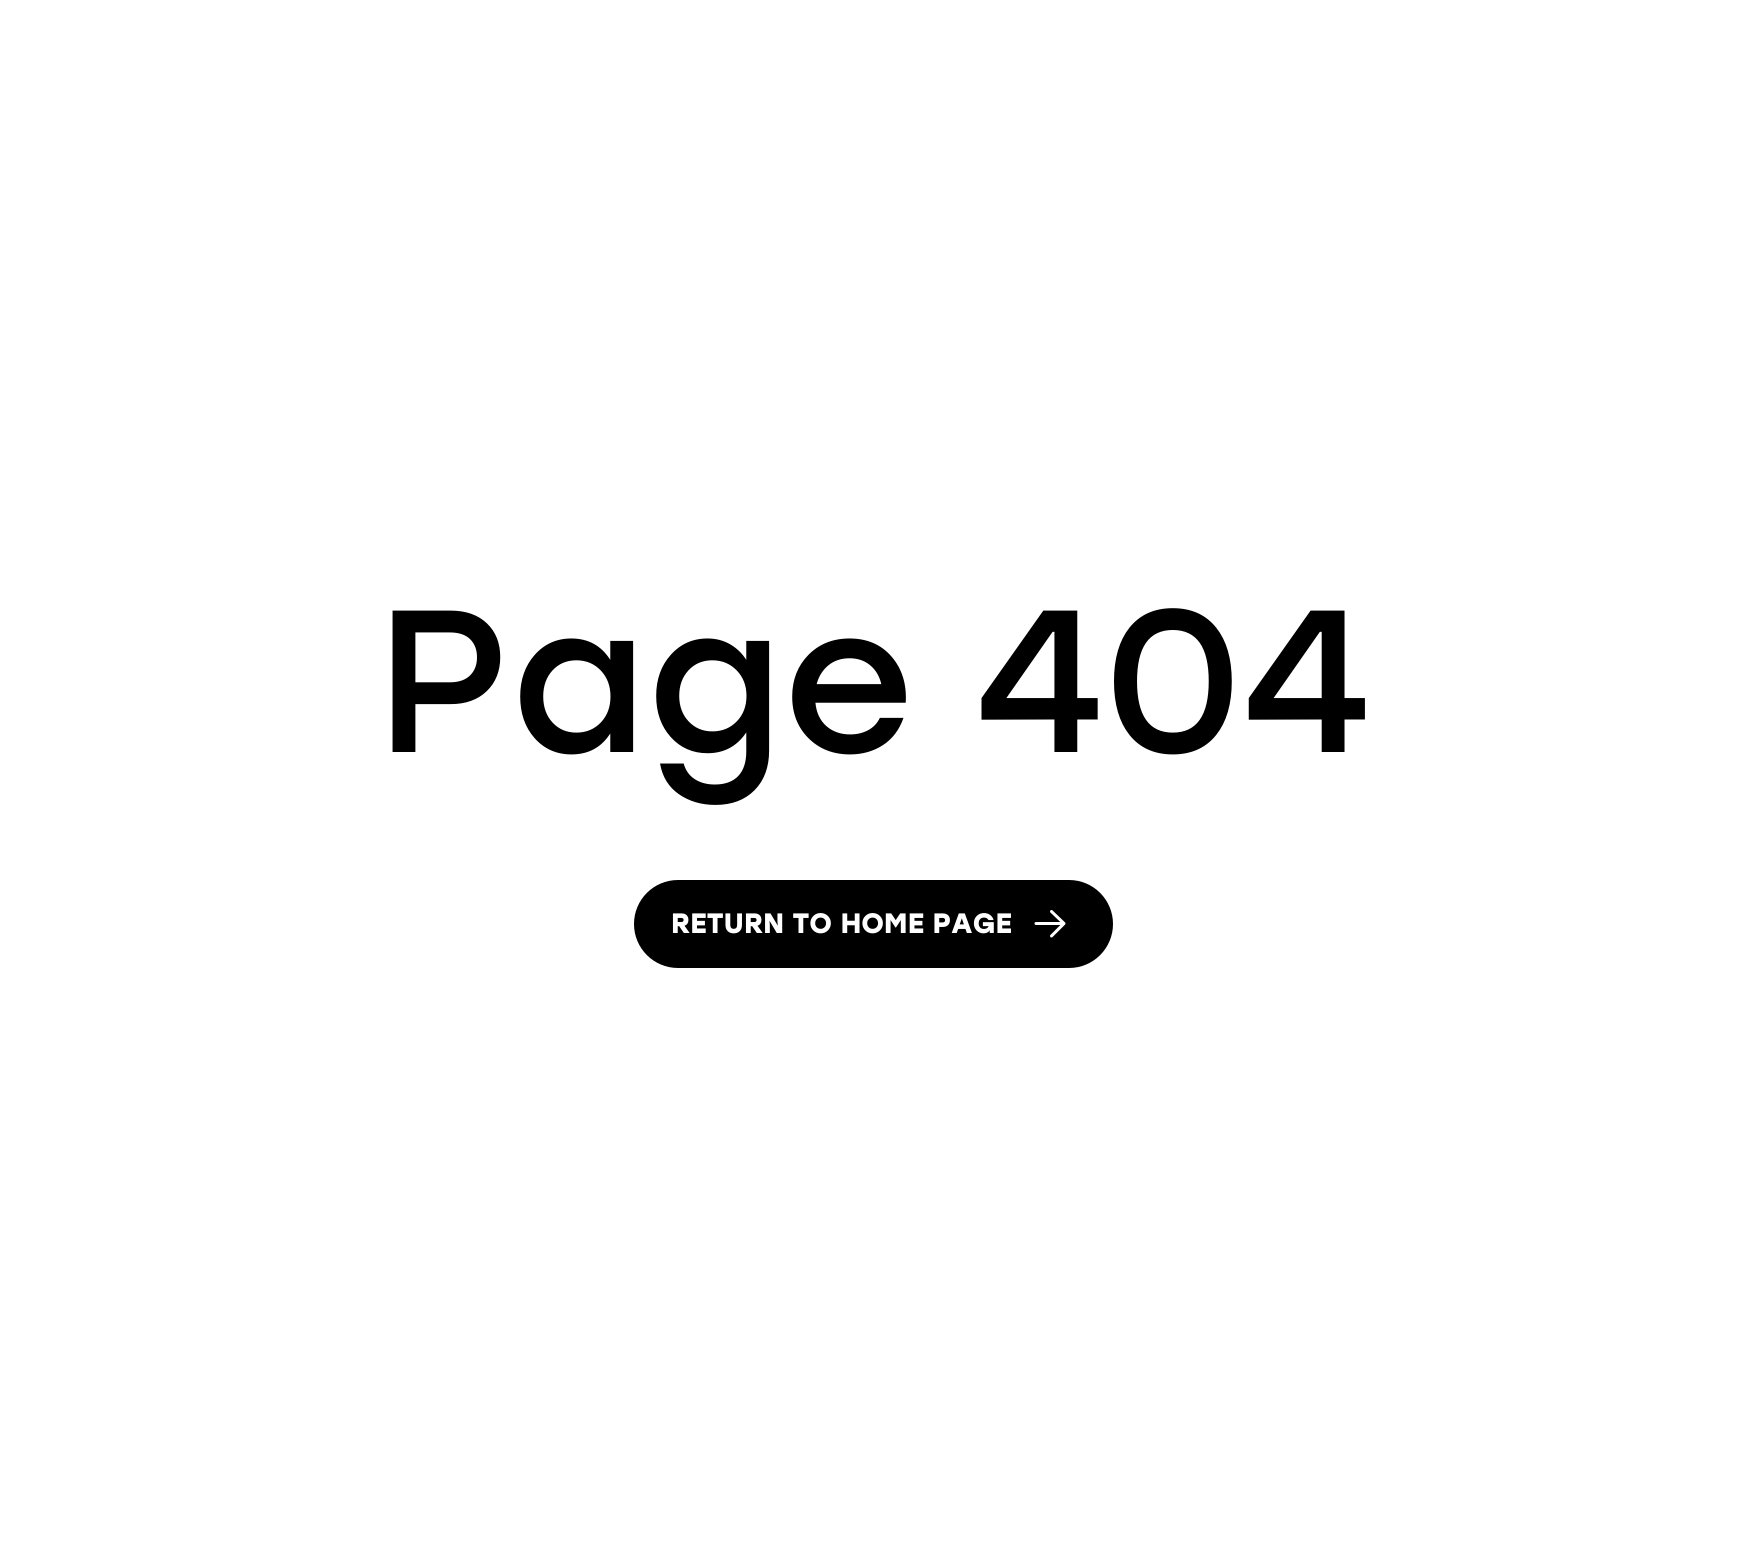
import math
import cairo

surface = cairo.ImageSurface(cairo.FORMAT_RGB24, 1745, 1551)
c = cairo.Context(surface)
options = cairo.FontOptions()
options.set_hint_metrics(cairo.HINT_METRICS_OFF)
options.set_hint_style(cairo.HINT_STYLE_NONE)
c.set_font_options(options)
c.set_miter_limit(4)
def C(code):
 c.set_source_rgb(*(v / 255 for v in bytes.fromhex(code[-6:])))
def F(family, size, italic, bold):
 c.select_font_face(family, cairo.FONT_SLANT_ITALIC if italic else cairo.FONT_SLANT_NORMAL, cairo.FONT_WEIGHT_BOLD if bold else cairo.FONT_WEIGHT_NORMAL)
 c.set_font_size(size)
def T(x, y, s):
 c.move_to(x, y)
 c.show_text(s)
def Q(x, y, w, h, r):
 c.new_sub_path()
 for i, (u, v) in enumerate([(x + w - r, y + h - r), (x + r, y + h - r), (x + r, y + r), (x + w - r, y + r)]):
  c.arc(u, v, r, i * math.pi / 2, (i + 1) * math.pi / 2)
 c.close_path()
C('ffffff')
c.paint()
F('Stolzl',202,0,0)
C('000000')
T(376,752,'Page 404')
Q(634,880,479,88,44)
c.fill()
F('Stolzl',28,0,1)
C('ffffff')
T(671,933,'RETURN TO HOME PAGE')
c.new_path()
c.move_to(1036,923.5)
c.line_to(1064,923.5)
c.move_to(1064,923.5)
c.line_to(1051.5,936)
c.move_to(1064,923.5)
c.line_to(1051.5,911.5)
c.set_line_width(3)
c.set_line_cap(cairo.LINE_CAP_ROUND)
c.set_line_join(cairo.LINE_JOIN_ROUND)
c.stroke()
surface.write_to_png('o.png')
